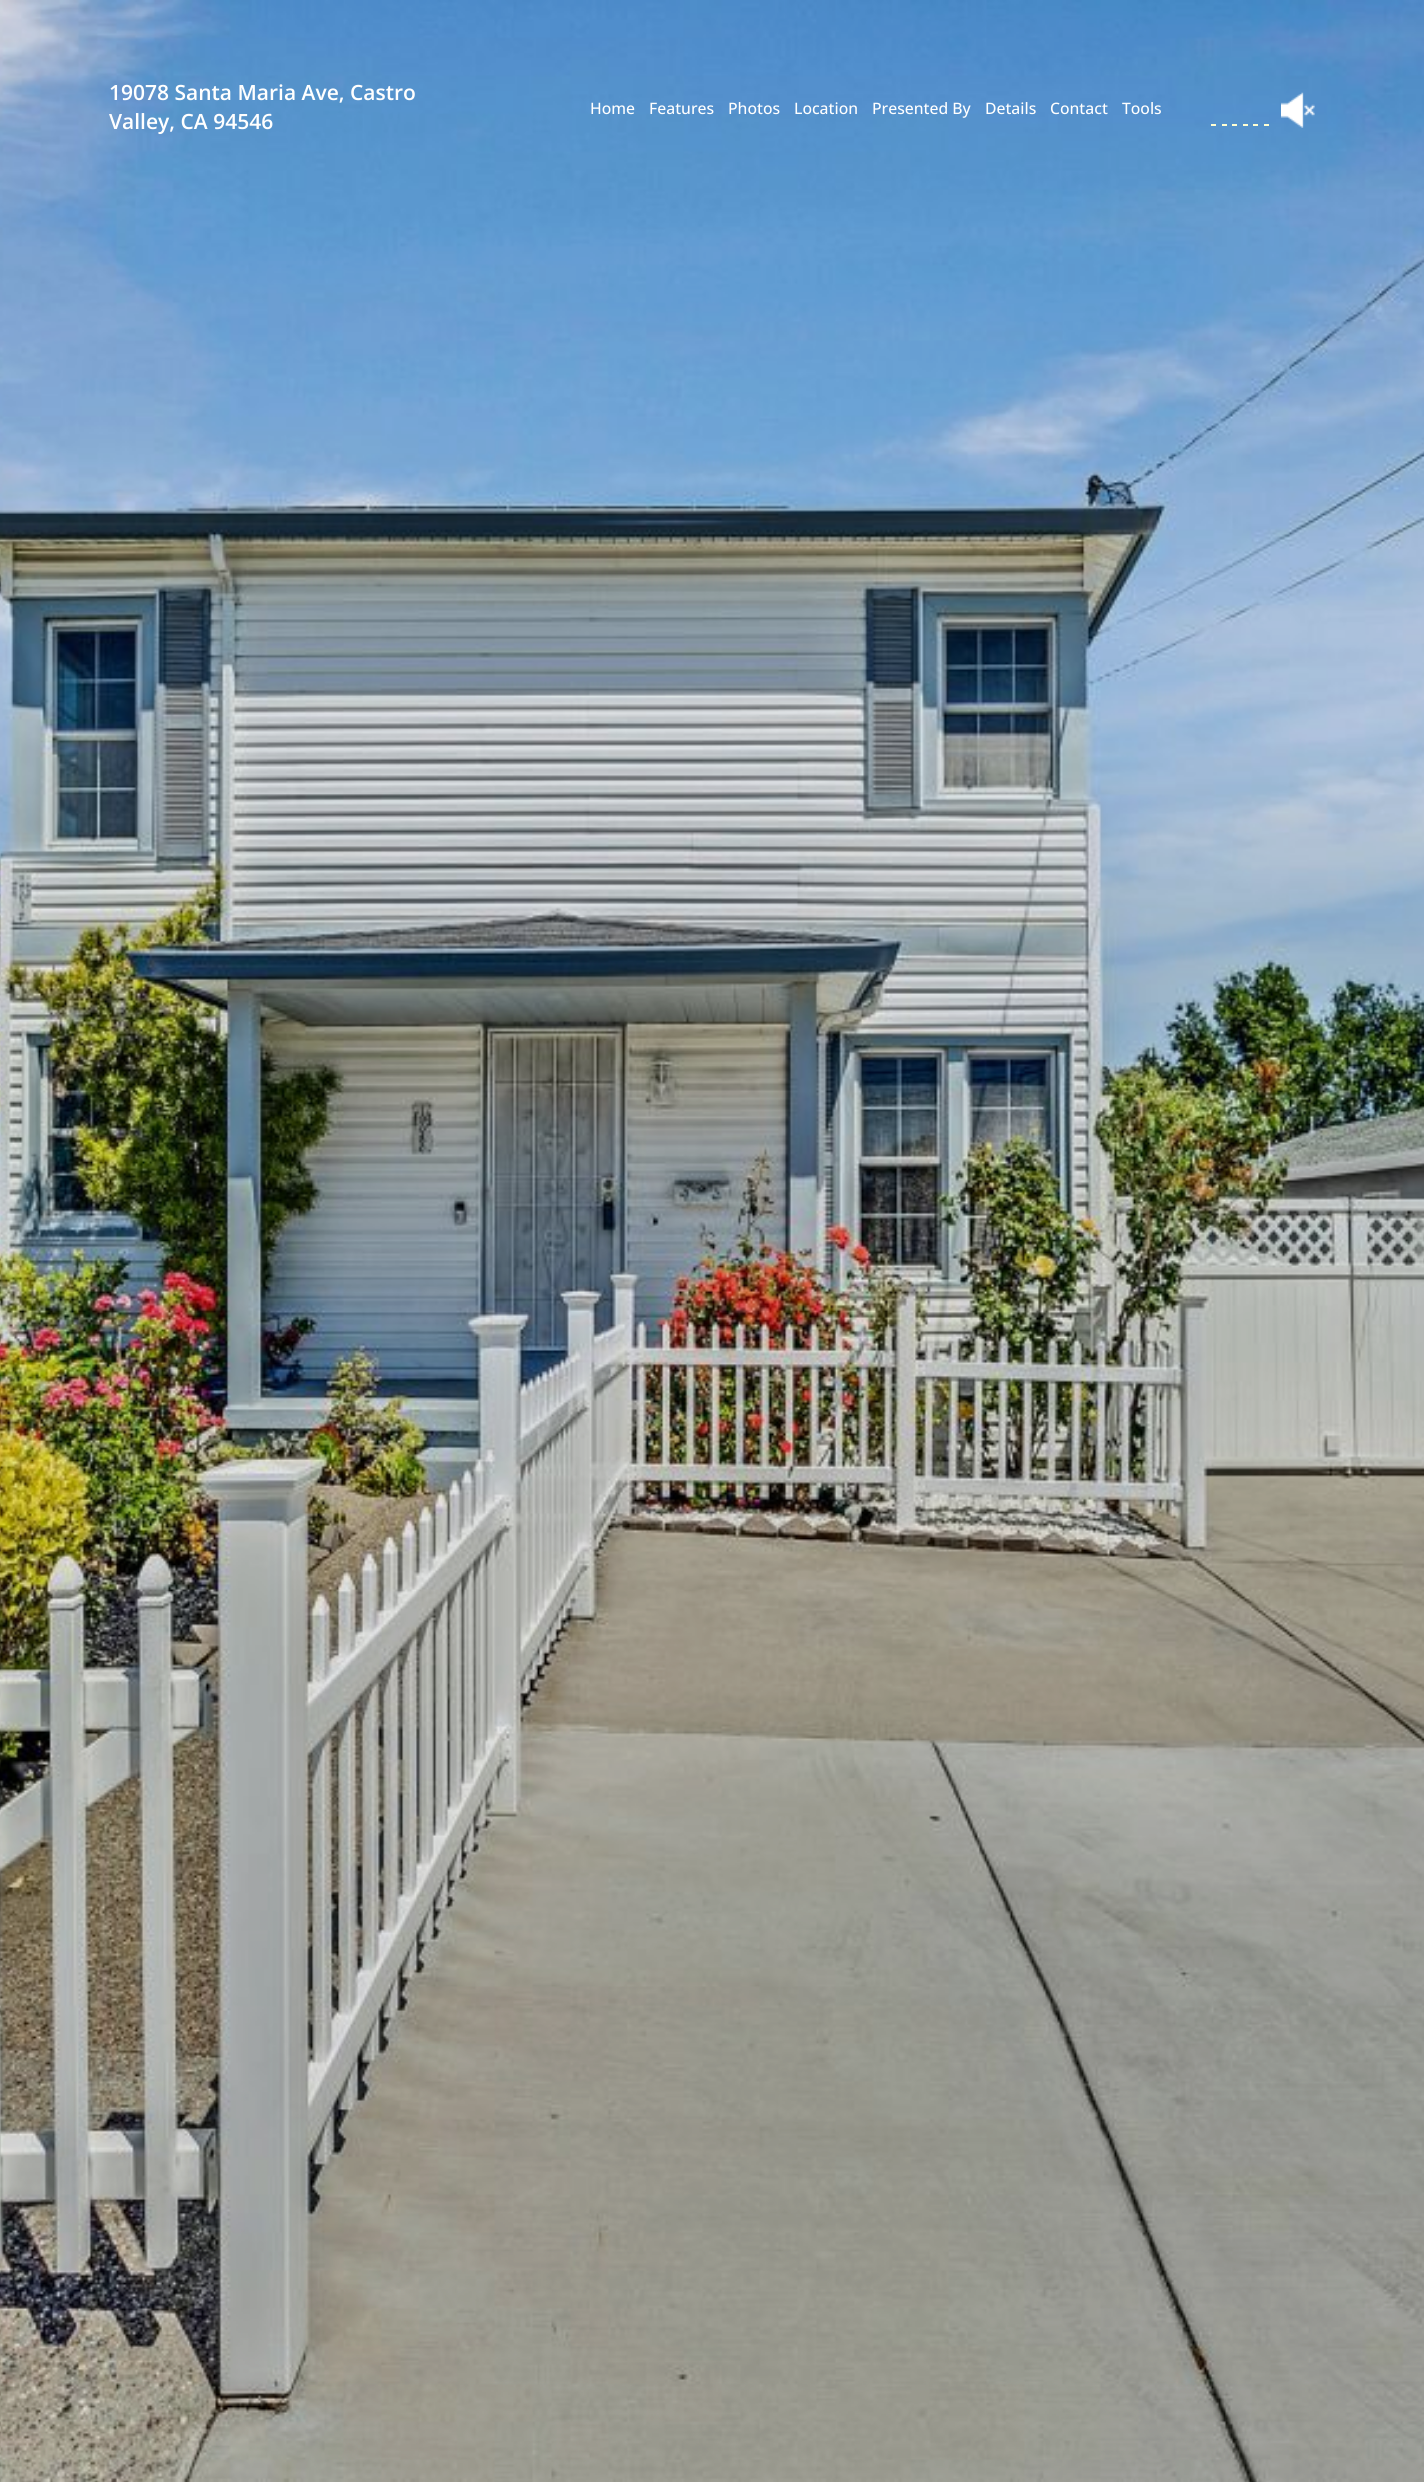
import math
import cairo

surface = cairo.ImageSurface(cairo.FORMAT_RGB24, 1424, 2482)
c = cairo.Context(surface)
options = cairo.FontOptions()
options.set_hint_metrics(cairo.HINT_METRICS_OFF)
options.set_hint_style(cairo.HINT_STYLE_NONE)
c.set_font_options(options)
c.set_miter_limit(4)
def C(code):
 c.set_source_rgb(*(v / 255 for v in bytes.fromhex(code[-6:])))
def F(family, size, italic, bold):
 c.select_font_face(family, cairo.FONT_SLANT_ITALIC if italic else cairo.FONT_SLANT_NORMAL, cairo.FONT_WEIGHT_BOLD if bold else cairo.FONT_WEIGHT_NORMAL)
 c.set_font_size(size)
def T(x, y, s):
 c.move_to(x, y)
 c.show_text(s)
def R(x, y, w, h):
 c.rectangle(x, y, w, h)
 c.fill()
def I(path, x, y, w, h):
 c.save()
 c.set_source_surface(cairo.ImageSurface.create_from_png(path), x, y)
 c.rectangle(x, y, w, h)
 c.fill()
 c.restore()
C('ffffff')
c.paint()
I('1.png',0,0,1424,2482)
F('Open Sans SemiBold',21,0,0)
C('ffffff')
T(109,100,'19078 Santa Maria Ave, Castro')
T(109,129,'Valley, CA 94546')
F('Open Sans Medium',15.75,0,0)
T(590,114,'Home')
T(649,114,'Features')
T(728,114,'Photos')
T(794,114,'Location')
T(872,114,'Presented By')
T(985,114,'Details')
T(1050,114,'Contact')
T(1122,114,'Tools')
C('ffffd2')
R(1211,124,5,2)
R(1222,124,5,2)
R(1232,124,5,2)
R(1243,124,5,2)
R(1253,124,5,2)
R(1264,124,5,2)
I('2.png',1281,92,34,36)
surface.write_to_png('o.png')
